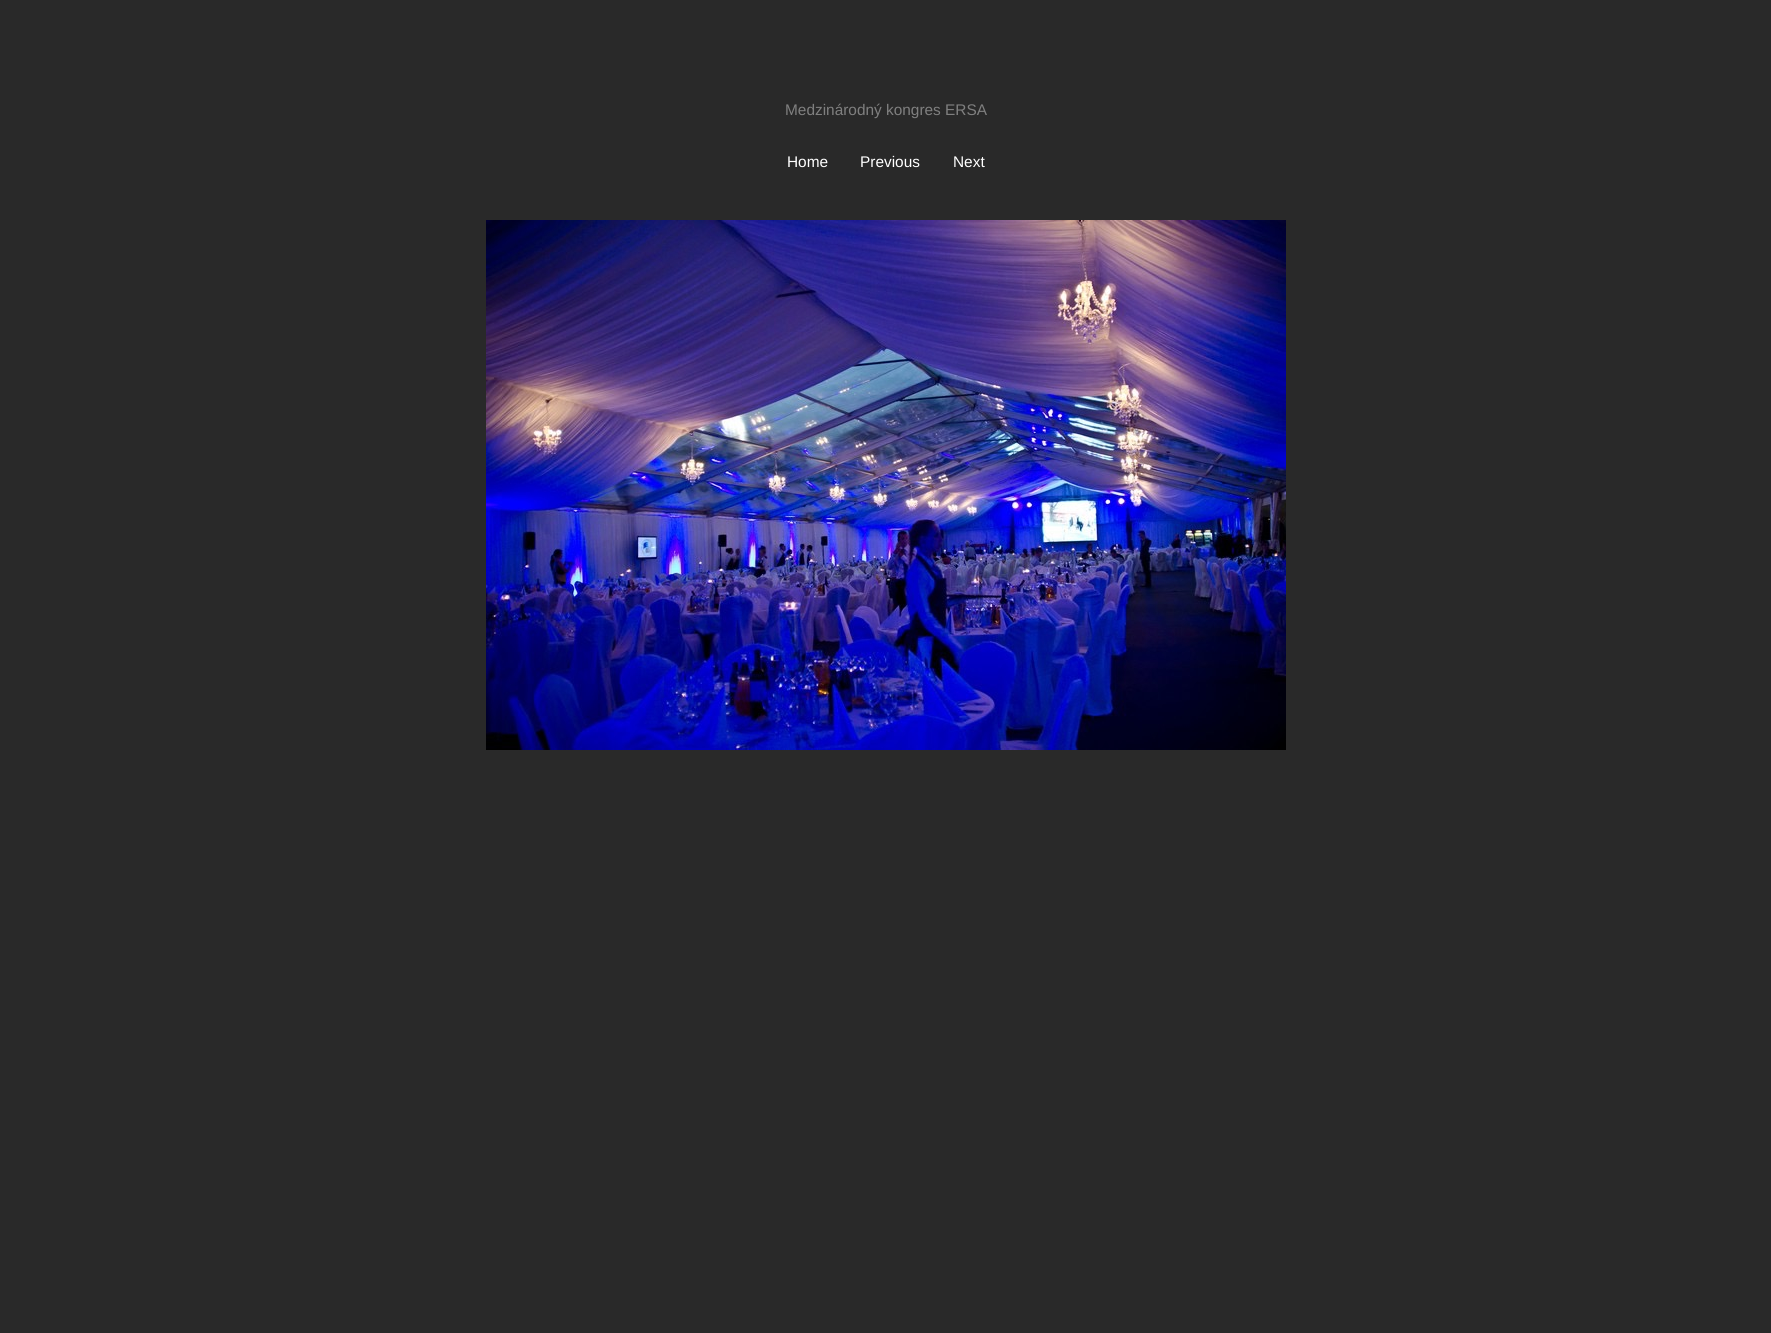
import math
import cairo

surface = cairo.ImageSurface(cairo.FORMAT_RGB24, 1771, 1333)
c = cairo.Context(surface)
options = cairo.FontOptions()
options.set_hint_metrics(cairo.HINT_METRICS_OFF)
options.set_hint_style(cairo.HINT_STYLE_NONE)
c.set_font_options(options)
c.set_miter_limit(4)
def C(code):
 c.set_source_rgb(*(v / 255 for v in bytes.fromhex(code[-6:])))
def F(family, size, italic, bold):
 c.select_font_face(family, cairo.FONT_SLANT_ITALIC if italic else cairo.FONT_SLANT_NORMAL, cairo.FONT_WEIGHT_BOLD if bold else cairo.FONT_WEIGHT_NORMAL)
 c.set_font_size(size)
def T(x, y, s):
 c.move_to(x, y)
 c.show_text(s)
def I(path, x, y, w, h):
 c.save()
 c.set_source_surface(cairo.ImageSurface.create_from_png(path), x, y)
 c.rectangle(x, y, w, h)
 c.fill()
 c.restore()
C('292929')
c.paint()
F('Liberation Sans',15.4,0,0)
C('7f7f7f')
T(785,115,'Medzinárodný kongres ERSA')
C('ffffff')
T(787,167,'Home')
T(860,167,'Previous')
T(953,167,'Next')
I('1.png',486,220,800,530)
surface.write_to_png('o.png')
